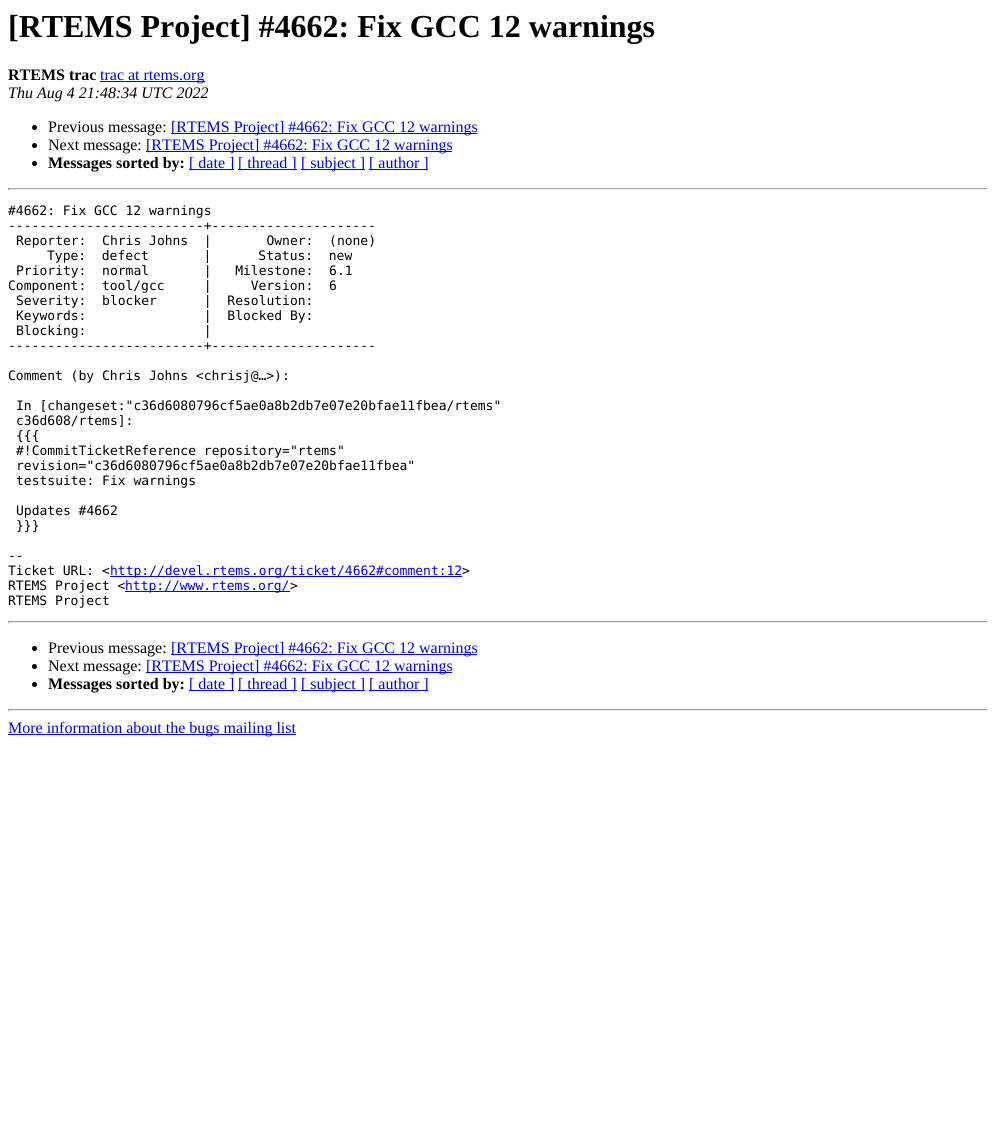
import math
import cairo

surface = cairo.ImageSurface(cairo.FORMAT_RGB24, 996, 1132)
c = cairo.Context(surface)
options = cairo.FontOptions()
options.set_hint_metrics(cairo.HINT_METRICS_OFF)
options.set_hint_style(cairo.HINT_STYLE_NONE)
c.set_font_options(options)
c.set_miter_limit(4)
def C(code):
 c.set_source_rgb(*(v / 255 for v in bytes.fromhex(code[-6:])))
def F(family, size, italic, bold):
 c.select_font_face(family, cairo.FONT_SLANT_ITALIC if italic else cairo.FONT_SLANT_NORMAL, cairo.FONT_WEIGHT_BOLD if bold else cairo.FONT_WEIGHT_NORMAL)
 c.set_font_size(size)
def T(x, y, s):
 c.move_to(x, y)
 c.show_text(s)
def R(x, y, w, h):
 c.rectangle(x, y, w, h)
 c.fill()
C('ffffff')
c.paint()
F('Liberation Serif',32,0,1)
C('000000')
T(8,37,'[RTEMS Project] #4662: Fix GCC 12 warnings')
F('Liberation Serif',16,0,1)
T(8,80,'RTEMS trac')
C('0000ee')
R(100,81,105,1)
F('Liberation Serif',16,0,0)
T(100,80,'trac at rtems.org')
F('Liberation Serif',16,1,0)
C('000000')
T(8,98,'Thu Aug 4 21:48:34 UTC 2022')
c.new_path()
c.arc(34.5,127.5,2.5,0,2 * math.pi)
c.fill()
F('Liberation Serif',16,0,0)
T(48,132,'Previous message:')
C('0000ee')
R(171,133,306,1)
T(171,132,'[RTEMS Project] #4662: Fix GCC 12 warnings')
C('000000')
c.new_path()
c.arc(34.5,145.5,2.5,0,2 * math.pi)
c.fill()
T(48,150,'Next message:')
C('0000ee')
R(146,151,306,1)
T(146,150,'[RTEMS Project] #4662: Fix GCC 12 warnings')
C('000000')
c.new_path()
c.arc(34.5,163.5,2.5,0,2 * math.pi)
c.fill()
F('Liberation Serif',16,0,1)
T(48,168,'Messages sorted by:')
C('0000ee')
R(189,169,45,1)
F('Liberation Serif',16,0,0)
T(189,168,'[ date ]')
R(238,169,59,1)
T(238,168,'[ thread ]')
R(301,169,64,1)
T(301,168,'[ subject ]')
R(369,169,59,1)
T(369,168,'[ author ]')
C('9f9f9f')
R(8,188,980,1)
C('eeeeee')
R(987,188,1,2)
R(8,189,980,1)
C('9f9f9f')
R(8,188,1,2)
F('DejaVu Sans Mono',13,0,0)
C('000000')
T(8,215,'#4662: Fix GCC 12 warnings')
T(8,230,'-------------------------+---------------------')
T(16,245,'Reporter:  Chris Johns  |       Owner:  (none)')
T(47,260,'Type:  defect       |      Status:  new')
T(16,275,'Priority:  normal       |   Milestone:  6.1')
T(8,290,'Component:  tool/gcc     |     Version:  6')
T(16,305,'Severity:  blocker      |  Resolution:')
T(16,320,'Keywords:               |  Blocked By:')
T(16,335,'Blocking:               |')
T(8,350,'-------------------------+---------------------')
T(8,380,'Comment (by Chris Johns <chrisj@…>):')
T(16,410,'In [changeset:"c36d6080796cf5ae0a8b2db7e07e20bfae11fbea/rtems"')
T(16,425,'c36d608/rtems]:')
T(16,440,'{{{')
T(16,455,'#!CommitTicketReference repository="rtems"')
T(16,470,'revision="c36d6080796cf5ae0a8b2db7e07e20bfae11fbea"')
T(16,485,'testsuite: Fix warnings')
T(16,515,'Updates #4662')
T(16,530,'}}}')
T(8,560,'--')
T(8,575,'Ticket URL: <')
C('0000ee')
R(110,576,352,1)
T(110,575,'http://devel.rtems.org/ticket/4662#comment:12')
C('000000')
T(462,575,'>')
T(8,590,'RTEMS Project <')
C('0000ee')
R(125,591,165,1)
T(125,590,'http://www.rtems.org/')
C('000000')
T(290,590,'>')
T(8,605,'RTEMS Project')
C('9f9f9f')
R(8,621,980,1)
C('eeeeee')
R(987,621,1,2)
R(8,622,980,1)
C('9f9f9f')
R(8,621,1,2)
C('000000')
c.new_path()
c.arc(34.5,648.5,2.5,0,2 * math.pi)
c.fill()
F('Liberation Serif',16,0,0)
T(48,653,'Previous message:')
C('0000ee')
R(171,654,306,1)
T(171,653,'[RTEMS Project] #4662: Fix GCC 12 warnings')
C('000000')
c.new_path()
c.arc(34.5,666.5,2.5,0,2 * math.pi)
c.fill()
T(48,671,'Next message:')
C('0000ee')
R(146,672,306,1)
T(146,671,'[RTEMS Project] #4662: Fix GCC 12 warnings')
C('000000')
c.new_path()
c.arc(34.5,684.5,2.5,0,2 * math.pi)
c.fill()
F('Liberation Serif',16,0,1)
T(48,689,'Messages sorted by:')
C('0000ee')
R(189,690,45,1)
F('Liberation Serif',16,0,0)
T(189,689,'[ date ]')
R(238,690,59,1)
T(238,689,'[ thread ]')
R(301,690,64,1)
T(301,689,'[ subject ]')
R(369,690,59,1)
T(369,689,'[ author ]')
C('9f9f9f')
R(8,709,980,1)
C('eeeeee')
R(987,709,1,2)
R(8,710,980,1)
C('9f9f9f')
R(8,709,1,2)
C('0000ee')
R(8,734,288,1)
T(8,733,'More information about the bugs mailing list')
surface.write_to_png('o.png')
